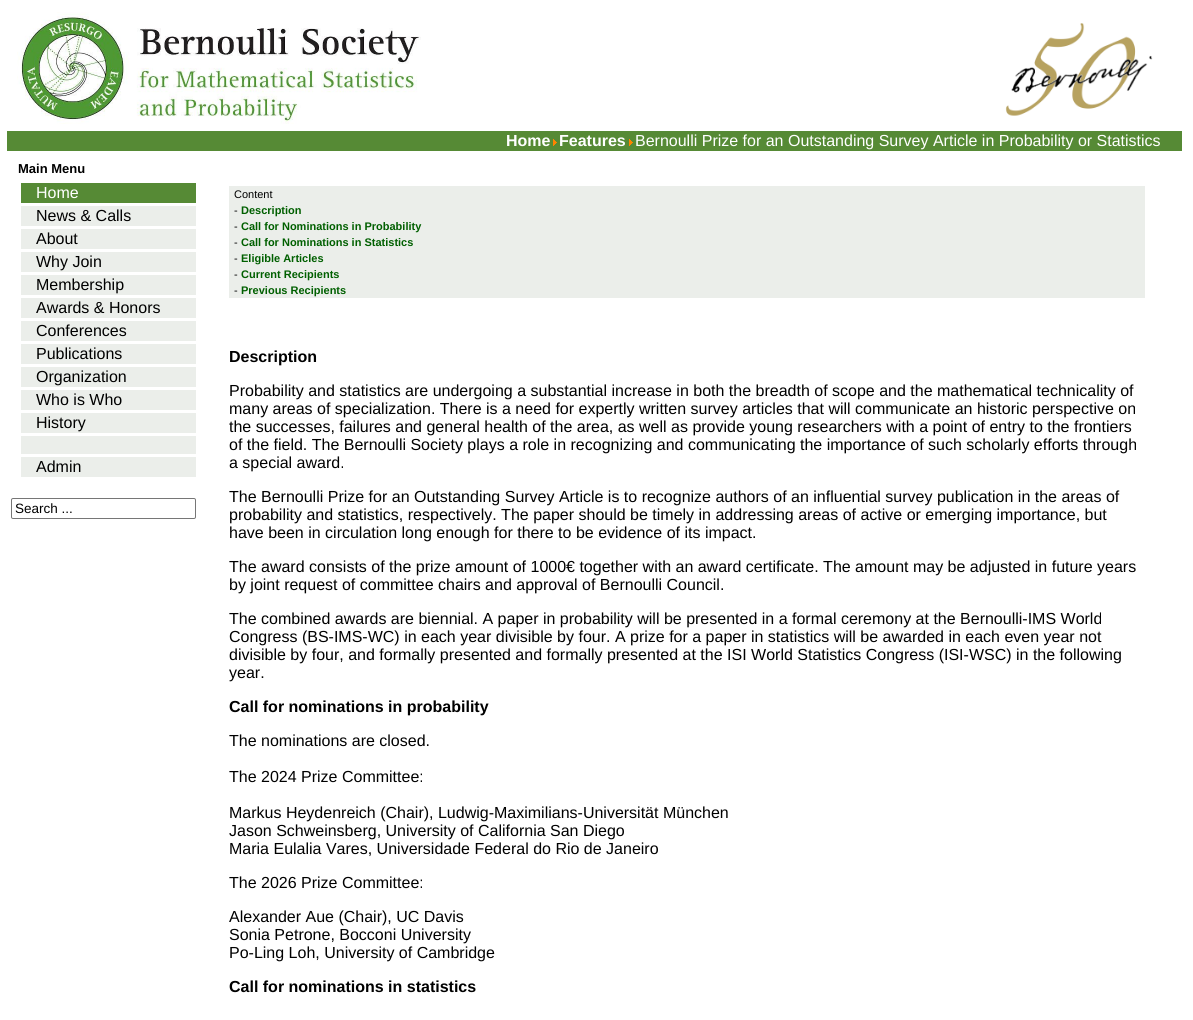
import math
import cairo

surface = cairo.ImageSurface(cairo.FORMAT_RGB24, 1193, 1020)
c = cairo.Context(surface)
options = cairo.FontOptions()
options.set_hint_metrics(cairo.HINT_METRICS_OFF)
options.set_hint_style(cairo.HINT_STYLE_NONE)
c.set_font_options(options)
c.set_miter_limit(4)
def C(code):
 c.set_source_rgb(*(v / 255 for v in bytes.fromhex(code[-6:])))
def F(family, size, italic, bold):
 c.select_font_face(family, cairo.FONT_SLANT_ITALIC if italic else cairo.FONT_SLANT_NORMAL, cairo.FONT_WEIGHT_BOLD if bold else cairo.FONT_WEIGHT_NORMAL)
 c.set_font_size(size)
def T(x, y, s):
 c.move_to(x, y)
 c.show_text(s)
def R(x, y, w, h):
 c.rectangle(x, y, w, h)
 c.fill()
def Q(x, y, w, h, r):
 c.new_sub_path()
 for i, (u, v) in enumerate([(x + w - r, y + h - r), (x + r, y + h - r), (x + r, y + r), (x + w - r, y + r)]):
  c.arc(u, v, r, i * math.pi / 2, (i + 1) * math.pi / 2)
 c.close_path()
def I(path, x, y, w, h):
 c.save()
 c.set_source_surface(cairo.ImageSurface.create_from_png(path), x, y)
 c.rectangle(x, y, w, h)
 c.fill()
 c.restore()
C('ffffff')
c.paint()
I('1.png',17,12,404,112)
I('2.png',1005,23,148,93)
C('568a35')
R(7,131,1175,20)
F('Liberation Sans',16,0,1)
C('ffffff')
T(506,146,'Home')
I('3.png',553,139,4,7)
T(559,146,'Features')
I('3.png',629,139,4,7)
F('Liberation Sans',16,0,0)
T(635,146,'Bernoulli Prize for an Outstanding Survey Article in Probability or Statistics')
F('Liberation Sans',13,0,1)
C('000000')
T(18,173,'Main Menu')
C('568a35')
R(21,183,175,20)
F('Liberation Sans',16,0,0)
C('ffffff')
T(36,198,'Home')
C('ebeeea')
R(21,206,175,20)
C('000000')
T(36,221,'News & Calls')
C('ebeeea')
R(21,229,175,20)
C('000000')
T(36,244,'About')
C('ebeeea')
R(21,252,175,20)
C('000000')
T(36,267,'Why Join')
C('ebeeea')
R(21,275,175,20)
C('000000')
T(36,290,'Membership')
C('ebeeea')
R(21,298,175,20)
C('000000')
T(36,313,'Awards & Honors')
C('ebeeea')
R(21,321,175,20)
C('000000')
T(36,336,'Conferences')
C('ebeeea')
R(21,344,175,20)
C('000000')
T(36,359,'Publications')
C('ebeeea')
R(21,367,175,20)
C('000000')
T(36,382,'Organization')
C('ebeeea')
R(21,390,175,20)
C('000000')
T(36,405,'Who is Who')
C('ebeeea')
R(21,413,175,20)
C('000000')
T(36,428,'History')
C('ebeeea')
R(21,436,175,18)
R(21,457,175,20)
C('000000')
T(36,472,'Admin')
Q(11.5,498.5,184,20,1.5)
C('767676')
c.set_line_width(1)
c.stroke()
F('Liberation Sans',13.5,0,0)
C('000000')
T(15,513,'Search ...')
C('ebeeea')
R(229,186,916,112)
F('Liberation Sans',11,0,0)
C('000000')
T(234,198,'Content')
T(234,214,'-')
F('Liberation Sans',11,0,1)
C('005f00')
T(241,214,'Description')
F('Liberation Sans',11,0,0)
C('000000')
T(234,230,'-')
F('Liberation Sans',11,0,1)
C('005f00')
T(241,230,'Call for Nominations in Probability')
F('Liberation Sans',11,0,0)
C('000000')
T(234,246,'-')
F('Liberation Sans',11,0,1)
C('005f00')
T(241,246,'Call for Nominations in Statistics')
F('Liberation Sans',11,0,0)
C('000000')
T(234,262,'-')
F('Liberation Sans',11,0,1)
C('005f00')
T(241,262,'Eligible Articles')
F('Liberation Sans',11,0,0)
C('000000')
T(234,278,'-')
F('Liberation Sans',11,0,1)
C('005f00')
T(241,278,'Current Recipients')
F('Liberation Sans',11,0,0)
C('000000')
T(234,294,'-')
F('Liberation Sans',11,0,1)
C('005f00')
T(241,294,'Previous Recipients')
F('Liberation Sans',16,0,1)
C('000000')
T(229,362,'Description')
F('Liberation Sans',16,0,0)
T(229,396,'Probability and statistics are undergoing a substantial increase in both the breadth of scope and the mathematical technicality of')
T(229,414,'many areas of specialization. There is a need for expertly written survey articles that will communicate an historic perspective on')
T(229,432,'the successes, failures and general health of the area, as well as provide young researchers with a point of entry to the frontiers')
T(229,450,'of the field. The Bernoulli Society plays a role in recognizing and communicating the importance of such scholarly efforts through')
T(229,468,'a special award.')
T(229,502,'The Bernoulli Prize for an Outstanding Survey Article is to recognize authors of an influential survey publication in the areas of')
T(229,520,'probability and statistics, respectively. The paper should be timely in addressing areas of active or emerging importance, but')
T(229,538,'have been in circulation long enough for there to be evidence of its impact.')
T(229,572,'The award consists of the prize amount of 1000€ together with an award certificate. The amount may be adjusted in future years')
T(229,590,'by joint request of committee chairs and approval of Bernoulli Council.')
T(229,624,'The combined awards are biennial. A paper in probability will be presented in a formal ceremony at the Bernoulli-IMS World')
T(229,642,'Congress (BS-IMS-WC) in each year divisible by four. A prize for a paper in statistics will be awarded in each even year not')
T(229,660,'divisible by four, and formally presented and formally presented at the ISI World Statistics Congress (ISI-WSC) in the following')
T(229,678,'year.')
F('Liberation Sans',16,0,1)
T(229,712,'Call for nominations in probability')
F('Liberation Sans',16,0,0)
T(229,746,'The nominations are closed.')
T(229,782,'The 2024 Prize Committee:')
T(229,818,'Markus Heydenreich (Chair), Ludwig-Maximilians-Universität München')
T(229,836,'Jason Schweinsberg, University of California San Diego')
T(229,854,'Maria Eulalia Vares, Universidade Federal do Rio de Janeiro')
T(229,888,'The 2026 Prize Committee:')
T(229,922,'Alexander Aue (Chair), UC Davis')
T(229,940,'Sonia Petrone, Bocconi University')
T(229,958,'Po-Ling Loh, University of Cambridge')
F('Liberation Sans',16,0,1)
T(229,992,'Call for nominations in statistics')
surface.write_to_png('o.png')
